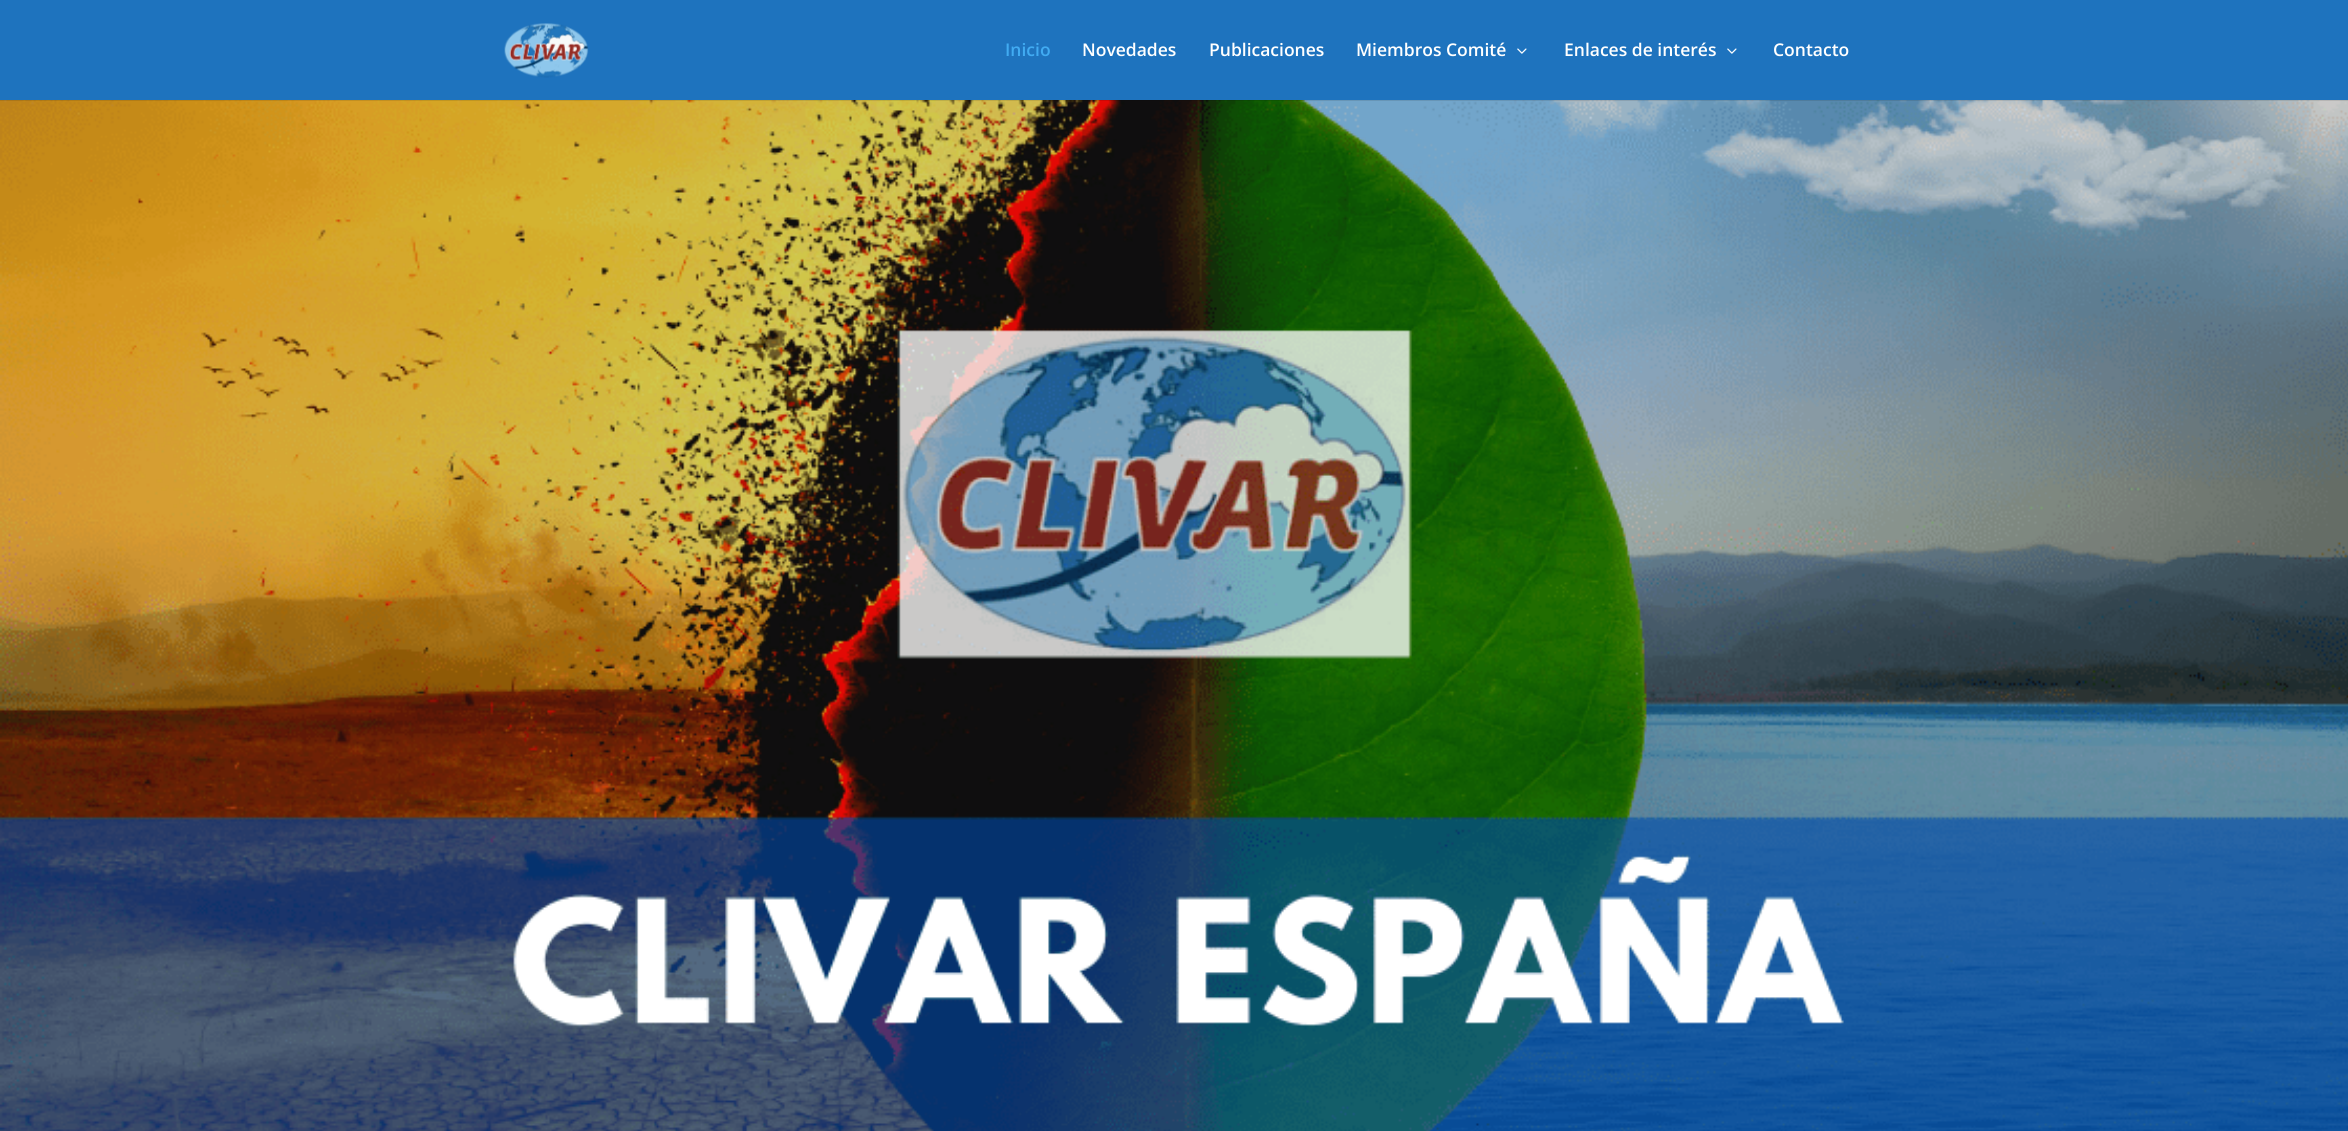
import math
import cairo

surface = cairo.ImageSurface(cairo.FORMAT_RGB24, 2348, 1131)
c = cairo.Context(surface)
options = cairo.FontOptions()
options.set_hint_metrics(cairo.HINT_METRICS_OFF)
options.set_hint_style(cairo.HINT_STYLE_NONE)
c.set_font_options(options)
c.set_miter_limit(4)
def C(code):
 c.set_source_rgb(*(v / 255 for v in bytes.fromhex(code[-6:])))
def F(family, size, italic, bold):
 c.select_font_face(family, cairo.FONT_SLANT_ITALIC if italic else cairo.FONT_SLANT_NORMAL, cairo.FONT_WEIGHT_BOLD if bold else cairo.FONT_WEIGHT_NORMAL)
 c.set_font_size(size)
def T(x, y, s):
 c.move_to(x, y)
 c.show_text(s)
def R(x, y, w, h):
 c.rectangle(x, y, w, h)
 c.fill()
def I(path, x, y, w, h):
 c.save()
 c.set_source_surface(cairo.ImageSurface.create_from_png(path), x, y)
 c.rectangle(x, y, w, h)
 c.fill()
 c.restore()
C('ffffff')
c.paint()
I('3.png',0,100,2348,1031)
c.set_source_rgba(0,0,0,0.1)
c.new_path()
c.move_to(0,100)
c.line_to(0,101)
c.line_to(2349,101)
c.line_to(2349,1)
c.line_to(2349,100)
c.close_path()
c.fill()
C('1e73be')
R(0,0,2348,100)
I('1.png',504,23,85,55)
F('Open Sans SemiBold',17.5,0,0)
C('41abf2')
T(1005,56,'Inicio')
C('ffffff')
T(1082,56,'Novedades')
T(1209,56,'Publicaciones')
T(1356,56,'Miembros Comité')
I('2.png',1517,48,10,6)
T(1564,56,'Enlaces de interés')
I('2.png',1727,48,10,6)
T(1773,56,'Contacto')
surface.write_to_png('o.png')
